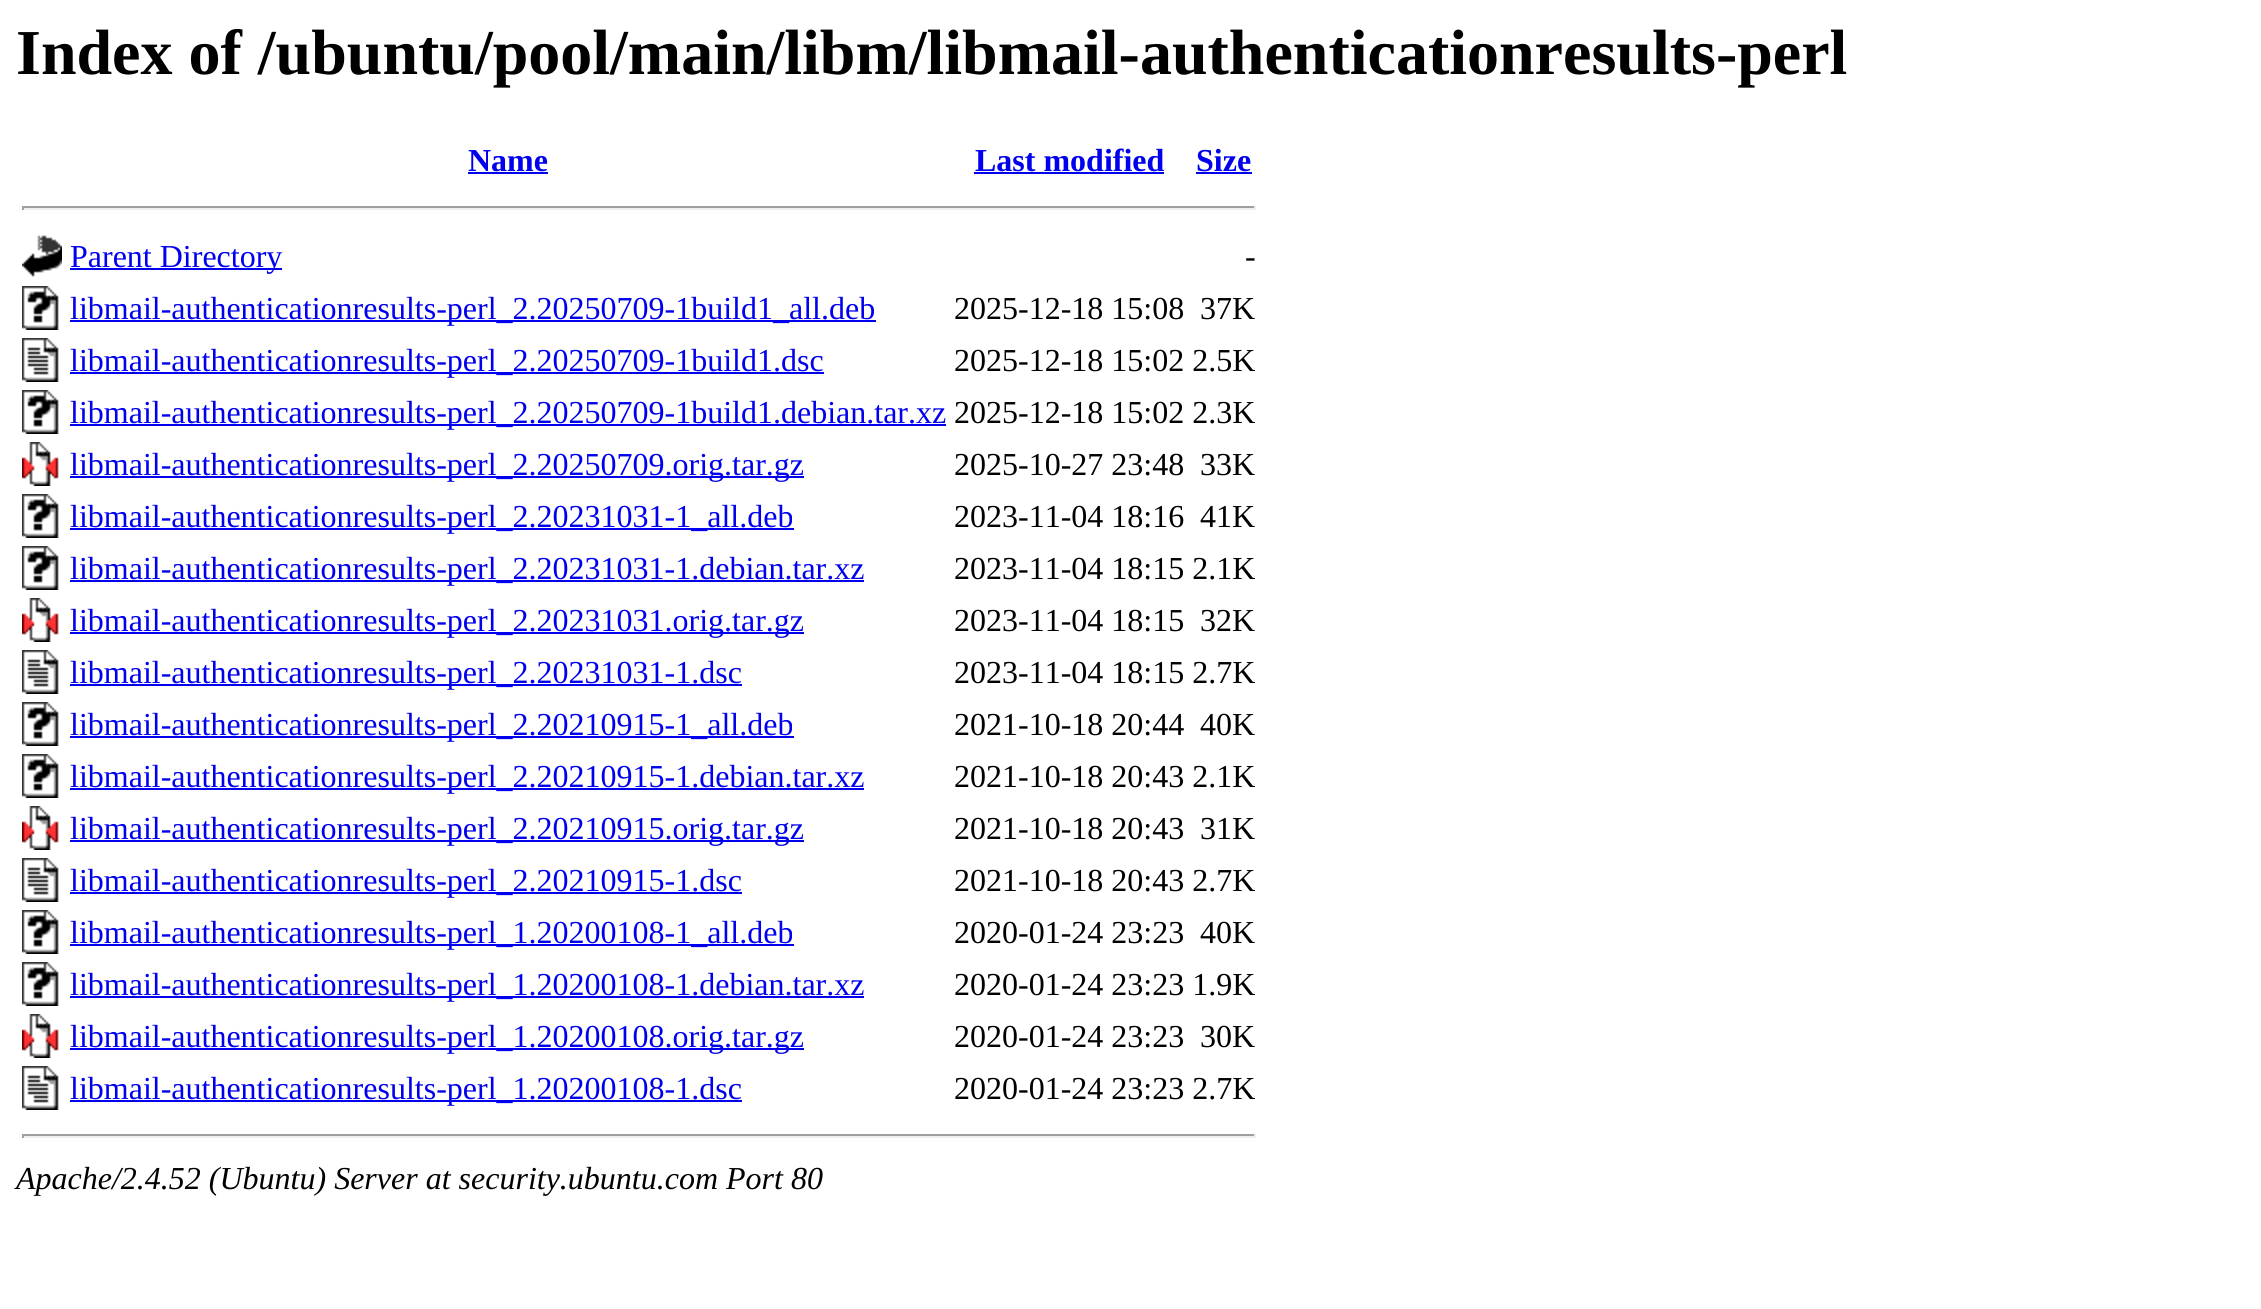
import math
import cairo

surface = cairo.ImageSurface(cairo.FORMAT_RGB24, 2261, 1309)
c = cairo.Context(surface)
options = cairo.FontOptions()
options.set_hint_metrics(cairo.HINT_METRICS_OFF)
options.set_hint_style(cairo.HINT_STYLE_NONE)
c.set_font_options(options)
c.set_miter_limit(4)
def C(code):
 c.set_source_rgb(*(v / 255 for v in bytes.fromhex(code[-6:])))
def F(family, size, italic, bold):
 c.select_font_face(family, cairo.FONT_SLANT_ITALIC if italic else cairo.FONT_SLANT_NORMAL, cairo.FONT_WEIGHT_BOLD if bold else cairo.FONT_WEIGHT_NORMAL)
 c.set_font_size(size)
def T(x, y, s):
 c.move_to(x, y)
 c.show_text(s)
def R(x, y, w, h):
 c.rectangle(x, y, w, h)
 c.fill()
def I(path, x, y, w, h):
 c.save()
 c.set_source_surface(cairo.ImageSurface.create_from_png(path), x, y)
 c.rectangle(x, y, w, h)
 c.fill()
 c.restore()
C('ffffff')
c.paint()
F('Liberation Serif',64,0,1)
C('000000')
T(16,74,'Index of /ubuntu/pool/main/libm/libmail-authenticationresults-perl')
F('Liberation Serif',32,0,1)
C('0000ee')
T(468,171,'Name')
R(468,172,80,2)
T(975,171,'Last modified')
R(974,172,190,2)
T(1196,171,'Size')
R(1196,172,56,2)
C('9f9f9f')
R(22,206,1234,2)
C('eeeeee')
R(1254,206,2,4)
R(22,208,1234,2)
C('9f9f9f')
R(22,206,2,4)
I('1.png',22,235,40,42)
C('0000ee')
R(70,268,212,2)
F('Liberation Serif',32,0,0)
T(70,267,'Parent Directory')
C('000000')
T(1245,267,'-')
I('2.png',22,286,37,44)
C('0000ee')
R(70,320,806,2)
T(70,319,'libmail-authenticationresults-perl_2.20250709-1build1_all.deb')
C('000000')
T(954,319,'2025-12-18 15:08')
T(1200,319,'37K')
I('3.png',22,338,37,44)
C('0000ee')
R(70,372,754,2)
T(70,371,'libmail-authenticationresults-perl_2.20250709-1build1.dsc')
C('000000')
T(954,371,'2025-12-18 15:02 2.5K')
I('2.png',22,390,37,44)
C('0000ee')
R(70,424,876,2)
T(70,423,'libmail-authenticationresults-perl_2.20250709-1build1.debian.tar.xz')
C('000000')
T(954,423,'2025-12-18 15:02 2.3K')
I('4.png',22,442,37,44)
C('0000ee')
R(70,476,734,2)
T(70,475,'libmail-authenticationresults-perl_2.20250709.orig.tar.gz')
C('000000')
T(954,475,'2025-10-27 23:48')
T(1200,475,'33K')
I('2.png',22,494,37,44)
C('0000ee')
R(70,528,724,2)
T(70,527,'libmail-authenticationresults-perl_2.20231031-1_all.deb')
C('000000')
T(954,527,'2023-11-04 18:16')
T(1200,527,'41K')
I('2.png',22,546,37,44)
C('0000ee')
R(70,580,794,2)
T(70,579,'libmail-authenticationresults-perl_2.20231031-1.debian.tar.xz')
C('000000')
T(954,579,'2023-11-04 18:15 2.1K')
I('4.png',22,598,37,44)
C('0000ee')
R(70,632,734,2)
T(70,631,'libmail-authenticationresults-perl_2.20231031.orig.tar.gz')
C('000000')
T(954,631,'2023-11-04 18:15')
T(1200,631,'32K')
I('3.png',22,650,37,44)
C('0000ee')
R(70,684,672,2)
T(70,683,'libmail-authenticationresults-perl_2.20231031-1.dsc')
C('000000')
T(954,683,'2023-11-04 18:15 2.7K')
I('2.png',22,702,37,44)
C('0000ee')
R(70,736,724,2)
T(70,735,'libmail-authenticationresults-perl_2.20210915-1_all.deb')
C('000000')
T(954,735,'2021-10-18 20:44')
T(1200,735,'40K')
I('2.png',22,754,37,44)
C('0000ee')
R(70,788,794,2)
T(70,787,'libmail-authenticationresults-perl_2.20210915-1.debian.tar.xz')
C('000000')
T(954,787,'2021-10-18 20:43 2.1K')
I('4.png',22,806,37,44)
C('0000ee')
R(70,840,734,2)
T(70,839,'libmail-authenticationresults-perl_2.20210915.orig.tar.gz')
C('000000')
T(954,839,'2021-10-18 20:43')
T(1200,839,'31K')
I('3.png',22,858,37,44)
C('0000ee')
R(70,892,672,2)
T(70,891,'libmail-authenticationresults-perl_2.20210915-1.dsc')
C('000000')
T(954,891,'2021-10-18 20:43 2.7K')
I('2.png',22,910,37,44)
C('0000ee')
R(70,944,724,2)
T(70,943,'libmail-authenticationresults-perl_1.20200108-1_all.deb')
C('000000')
T(954,943,'2020-01-24 23:23')
T(1200,943,'40K')
I('2.png',22,962,37,44)
C('0000ee')
R(70,996,794,2)
T(70,995,'libmail-authenticationresults-perl_1.20200108-1.debian.tar.xz')
C('000000')
T(954,995,'2020-01-24 23:23 1.9K')
I('4.png',22,1014,37,44)
C('0000ee')
R(70,1048,734,2)
T(70,1047,'libmail-authenticationresults-perl_1.20200108.orig.tar.gz')
C('000000')
T(954,1047,'2020-01-24 23:23')
T(1200,1047,'30K')
I('3.png',22,1066,37,44)
C('0000ee')
R(70,1100,672,2)
T(70,1099,'libmail-authenticationresults-perl_1.20200108-1.dsc')
C('000000')
T(954,1099,'2020-01-24 23:23 2.7K')
C('9f9f9f')
R(22,1134,1234,2)
C('eeeeee')
R(1254,1134,2,4)
R(22,1136,1234,2)
C('9f9f9f')
R(22,1134,2,4)
F('Liberation Serif',32,1,0)
C('000000')
T(16,1189,'Apache/2.4.52 (Ubuntu) Server at security.ubuntu.com Port 80')
surface.write_to_png('o.png')
